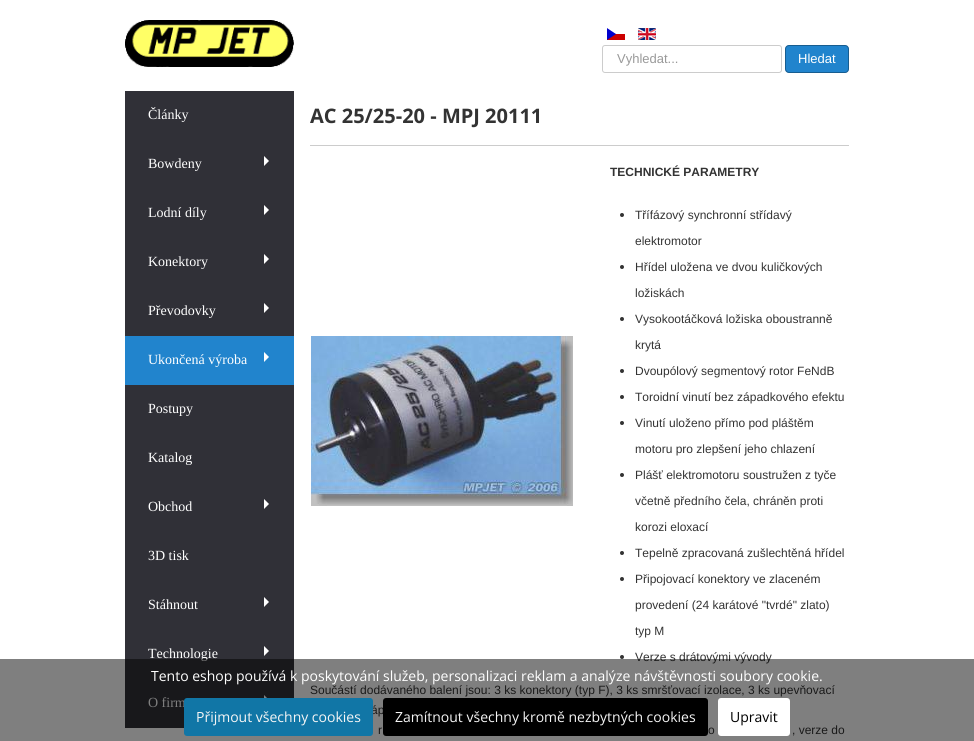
import math
import cairo

surface = cairo.ImageSurface(cairo.FORMAT_RGB24, 974, 741)
c = cairo.Context(surface)
options = cairo.FontOptions()
options.set_hint_metrics(cairo.HINT_METRICS_OFF)
options.set_hint_style(cairo.HINT_STYLE_NONE)
c.set_font_options(options)
c.set_miter_limit(4)
def C(code):
 c.set_source_rgb(*(v / 255 for v in bytes.fromhex(code[-6:])))
def F(family, size, italic, bold):
 c.select_font_face(family, cairo.FONT_SLANT_ITALIC if italic else cairo.FONT_SLANT_NORMAL, cairo.FONT_WEIGHT_BOLD if bold else cairo.FONT_WEIGHT_NORMAL)
 c.set_font_size(size)
def T(x, y, s):
 c.move_to(x, y)
 c.show_text(s)
def R(x, y, w, h):
 c.rectangle(x, y, w, h)
 c.fill()
def Q(x, y, w, h, r):
 c.new_sub_path()
 for i, (u, v) in enumerate([(x + w - r, y + h - r), (x + r, y + h - r), (x + r, y + r), (x + w - r, y + r)]):
  c.arc(u, v, r, i * math.pi / 2, (i + 1) * math.pi / 2)
 c.close_path()
def I(path, x, y, w, h):
 c.save()
 c.set_source_surface(cairo.ImageSurface.create_from_png(path), x, y)
 c.rectangle(x, y, w, h)
 c.fill()
 c.restore()
C('ffffff')
c.paint()
I('1.png',125,20,169,47)
I('2.png',607,28,18,12)
I('3.png',638,28,18,12)
Q(602.5,45.5,179,27,2.5)
C('cccccc')
c.set_line_width(1)
c.stroke()
F('Liberation Sans',13,0,0)
C('999999')
T(617,63,'Vyhledat...')
C('2184cd')
Q(785,45,64,28,4)
c.fill()
Q(785.5,45.5,63,27,3.5)
c.set_source_rgba(0,0,0,0.3)
c.stroke()
C('ffffff')
T(798,63,'Hledat')
C('303037')
R(125,91,169,637)
F('Liberation Serif',14,0,0)
C('ffffff')
T(148,119,'Články')
T(148,168,'Bowdeny')
c.new_path()
c.move_to(264,166)
c.line_to(264,156)
c.line_to(269,161)
c.close_path()
c.fill()
T(148,217,'Lodní díly')
c.new_path()
c.move_to(264,215)
c.line_to(264,205)
c.line_to(269,210)
c.close_path()
c.fill()
T(148,266,'Konektory')
c.new_path()
c.move_to(264,264)
c.line_to(264,254)
c.line_to(269,259)
c.close_path()
c.fill()
T(148,315,'Převodovky')
c.new_path()
c.move_to(264,313)
c.line_to(264,303)
c.line_to(269,308)
c.close_path()
c.fill()
C('2184cd')
R(125,336,169,49)
C('ffffff')
T(148,364,'Ukončená výroba')
c.new_path()
c.move_to(264,362)
c.line_to(264,352)
c.line_to(269,357)
c.close_path()
c.fill()
T(148,413,'Postupy')
T(148,462,'Katalog')
T(148,511,'Obchod')
c.new_path()
c.move_to(264,509)
c.line_to(264,499)
c.line_to(269,504)
c.close_path()
c.fill()
T(148,560,'3D tisk')
T(148,609,'Stáhnout')
c.new_path()
c.move_to(264,607)
c.line_to(264,597)
c.line_to(269,602)
c.close_path()
c.fill()
T(148,658,'Technologie')
c.new_path()
c.move_to(264,656)
c.line_to(264,646)
c.line_to(269,651)
c.close_path()
c.fill()
T(148,707,'O firm')
c.new_path()
c.move_to(264,705)
c.line_to(264,695)
c.line_to(269,700)
c.close_path()
c.fill()
C('cccccc')
R(310,145,539,1)
F('Open Sans',20,0,1)
C('333333')
T(310,123,'AC 25/25-20 - MPJ 20111')
I('4.png',311,336,262,170)
F('Liberation Sans',12,0,1)
T(610,176,'TECHNICKÉ PARAMETRY')
c.new_path()
c.arc(622,215,2,0,2 * math.pi)
c.fill()
F('Liberation Sans',12,0,0)
T(635,219,'Třífázový synchronní střídavý')
T(635,245,'elektromotor')
c.new_path()
c.arc(622,267,2,0,2 * math.pi)
c.fill()
T(635,271,'Hřídel uložena ve dvou kuličkových')
T(635,297,'ložiskách')
c.new_path()
c.arc(622,319,2,0,2 * math.pi)
c.fill()
T(635,323,'Vysokootáčková ložiska oboustranně')
T(635,349,'krytá')
c.new_path()
c.arc(622,371,2,0,2 * math.pi)
c.fill()
T(635,375,'Dvoupólový segmentový rotor FeNdB')
c.new_path()
c.arc(622,397,2,0,2 * math.pi)
c.fill()
T(635,401,'Toroidní vinutí bez západkového efektu')
c.new_path()
c.arc(622,423,2,0,2 * math.pi)
c.fill()
T(635,427,'Vinutí uloženo přímo pod pláštěm')
T(635,453,'motoru pro zlepšení jeho chlazení')
c.new_path()
c.arc(622,475,2,0,2 * math.pi)
c.fill()
T(635,479,'Plášť elektromotoru soustružen z tyče')
T(635,505,'včetně předního čela, chráněn proti')
T(635,531,'korozi eloxací')
c.new_path()
c.arc(622,553,2,0,2 * math.pi)
c.fill()
T(635,557,'Tepelně zpracovaná zušlechtěná hřídel')
c.new_path()
c.arc(622,579,2,0,2 * math.pi)
c.fill()
T(635,583,'Připojovací konektory ve zlaceném')
T(635,609,'provedení (24 karátové "tvrdé" zlato)')
T(635,635,'typ M')
c.new_path()
c.arc(622,657,2,0,2 * math.pi)
c.fill()
T(635,661,'Verze s drátovými vývody')
T(310,694,'Součástí dodávaného balení jsou: 3 ks konektory (typ F), 3 ks smršťovací izolace, 3 ks upevňovací')
T(371,714,'áp')
T(378,734,'r')
T(708,734,'o')
T(792,734,', verze do')
c.set_source_rgba(0,0,0,0.5)
R(0,659,974,82)
F('Open Sans',14,0,0)
C('ffffff')
T(151,681,'Tento eshop používá k poskytování služeb, personalizaci reklam a analýze návštěvnosti soubory cookie.')
C('1176a6')
Q(185,699,187,36,2)
c.fill_preserve()
c.set_line_width(2)
c.stroke()
C('f5f5f5')
T(196,722,'Přijmout všechny cookies')
C('000000')
Q(384,699,323,36,2)
c.fill_preserve()
c.stroke()
C('f5f5f5')
T(395,722,'Zamítnout všechny kromě nezbytných cookies')
C('ffffff')
Q(719,699,70,36,2)
c.fill_preserve()
c.stroke()
C('000000')
T(730,722,'Upravit')
surface.write_to_png('o.png')
